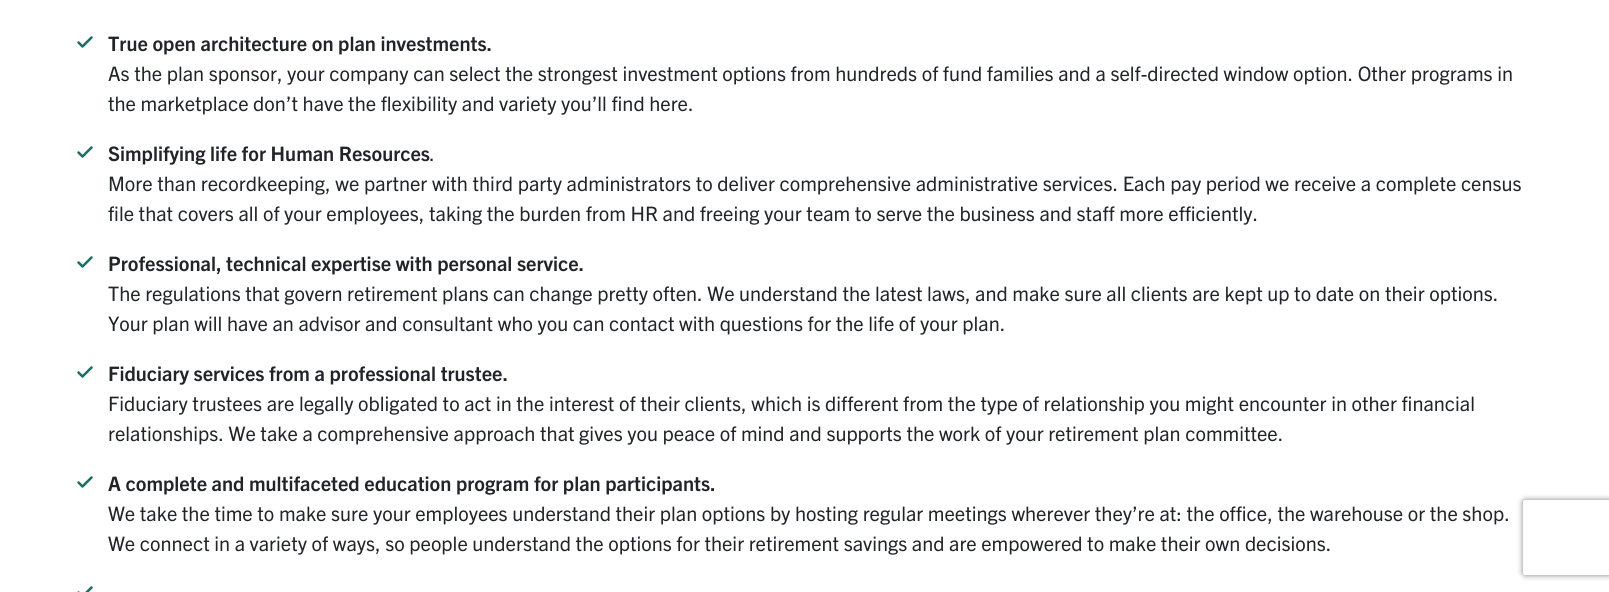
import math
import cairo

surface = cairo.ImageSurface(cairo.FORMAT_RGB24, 1609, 592)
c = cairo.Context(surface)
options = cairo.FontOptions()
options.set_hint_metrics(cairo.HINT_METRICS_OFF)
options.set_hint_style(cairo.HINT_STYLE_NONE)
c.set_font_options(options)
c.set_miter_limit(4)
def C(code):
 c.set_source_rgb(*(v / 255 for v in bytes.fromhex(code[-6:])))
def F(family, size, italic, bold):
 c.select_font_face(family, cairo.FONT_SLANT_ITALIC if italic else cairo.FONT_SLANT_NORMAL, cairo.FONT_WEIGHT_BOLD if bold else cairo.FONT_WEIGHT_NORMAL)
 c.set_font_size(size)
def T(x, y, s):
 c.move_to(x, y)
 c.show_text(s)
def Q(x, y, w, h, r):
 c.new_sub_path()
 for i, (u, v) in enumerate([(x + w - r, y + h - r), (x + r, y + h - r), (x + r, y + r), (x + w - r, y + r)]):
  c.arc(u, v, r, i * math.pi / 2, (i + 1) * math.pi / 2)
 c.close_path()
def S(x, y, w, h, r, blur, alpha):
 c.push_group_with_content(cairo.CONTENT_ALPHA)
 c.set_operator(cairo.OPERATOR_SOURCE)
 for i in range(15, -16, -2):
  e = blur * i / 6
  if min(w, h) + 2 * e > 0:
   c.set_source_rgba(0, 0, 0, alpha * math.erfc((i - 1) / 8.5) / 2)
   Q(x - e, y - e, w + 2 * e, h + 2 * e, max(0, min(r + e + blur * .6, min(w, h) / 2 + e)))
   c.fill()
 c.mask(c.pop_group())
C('ffffff')
c.paint()
c.new_path()
c.move_to(91.5,37.5)
c.line_to(82.5,46.5)
c.line_to(78.5,42.5)
C('186e63')
c.set_line_width(2.5)
c.set_line_cap(cairo.LINE_CAP_ROUND)
c.set_line_join(cairo.LINE_JOIN_ROUND)
c.stroke()
F('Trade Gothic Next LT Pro',20,0,1)
C('212529')
T(108,51,'True open architecture on plan investments.')
F('Trade Gothic Next LT Pro',20,0,0)
T(108,81,'As the plan sponsor, your company can select the strongest investment options from hundreds of fund families and a self-directed window option. Other programs in')
T(108,111,'the marketplace don’t have the flexibility and variety you’ll find here.')
c.new_path()
c.move_to(91.5,147.5)
c.line_to(82.5,156.5)
c.line_to(78.5,152.5)
C('186e63')
c.stroke()
F('Trade Gothic Next LT Pro',20,0,1)
C('212529')
T(108,161,'Simplifying life for Human Resources')
F('Trade Gothic Next LT Pro',20,0,0)
T(429,161,'.')
T(108,191,'More than recordkeeping, we partner with third party administrators to deliver comprehensive administrative services. Each pay period we receive a complete census')
T(108,221,'file that covers all of your employees, taking the burden from HR and freeing your team to serve the business and staff more efficiently.')
c.new_path()
c.move_to(91.5,257.5)
c.line_to(82.5,266.5)
c.line_to(78.5,262.5)
C('186e63')
c.stroke()
F('Trade Gothic Next LT Pro',20,0,1)
C('212529')
T(108,271,'Professional, technical expertise with personal service.')
F('Trade Gothic Next LT Pro',20,0,0)
T(108,301,'The regulations that govern retirement plans can change pretty often. We understand the latest laws, and make sure all clients are kept up to date on their options.')
T(108,331,'Your plan will have an advisor and consultant who you can contact with questions for the life of your plan.')
c.new_path()
c.move_to(91.5,367.5)
c.line_to(82.5,376.5)
c.line_to(78.5,372.5)
C('186e63')
c.stroke()
F('Trade Gothic Next LT Pro',20,0,1)
C('212529')
T(108,381,'Fiduciary services from a professional trustee.')
F('Trade Gothic Next LT Pro',20,0,0)
T(108,411,'Fiduciary trustees are legally obligated to act in the interest of their clients, which is different from the type of relationship you might encounter in other financial')
T(108,441,'relationships. We take a comprehensive approach that gives you peace of mind and supports the work of your retirement plan committee.')
c.new_path()
c.move_to(91.5,477.5)
c.line_to(82.5,486.5)
c.line_to(78.5,482.5)
C('186e63')
c.stroke()
F('Trade Gothic Next LT Pro',20,0,1)
C('212529')
T(108,491,'A complete and multifaceted education program for plan participants.')
F('Trade Gothic Next LT Pro',20,0,0)
T(108,521,'We take the time to make sure your employees understand their plan options by hosting regular meetings wherever they’re at: the office, the warehouse or the shop.')
T(108,551,'We connect in a variety of ways, so people understand the options for their retirement savings and are empowered to make their own decisions.')
c.new_path()
c.move_to(91.5,587.5)
c.line_to(82.5,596.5)
c.line_to(78.5,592.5)
C('186e63')
c.stroke()
c.save()
c.set_fill_rule(cairo.FILL_RULE_EVEN_ODD)
c.new_path()
c.move_to(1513,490)
c.line_to(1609,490)
c.line_to(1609,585)
c.line_to(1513,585)
c.close_path()
c.move_to(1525.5,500)
c.line_to(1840.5,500)
c.curve_to(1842,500,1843,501,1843,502.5)
c.line_to(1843,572.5)
c.curve_to(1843,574,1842,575,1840.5,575)
c.line_to(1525.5,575)
c.curve_to(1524,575,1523,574,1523,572.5)
c.line_to(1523,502.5)
c.curve_to(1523,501,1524,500,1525.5,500)
c.close_path()
c.clip()
C('808080')
S(1523,500,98,75,2.5,3,1)
c.restore()
surface.write_to_png('o.png')
